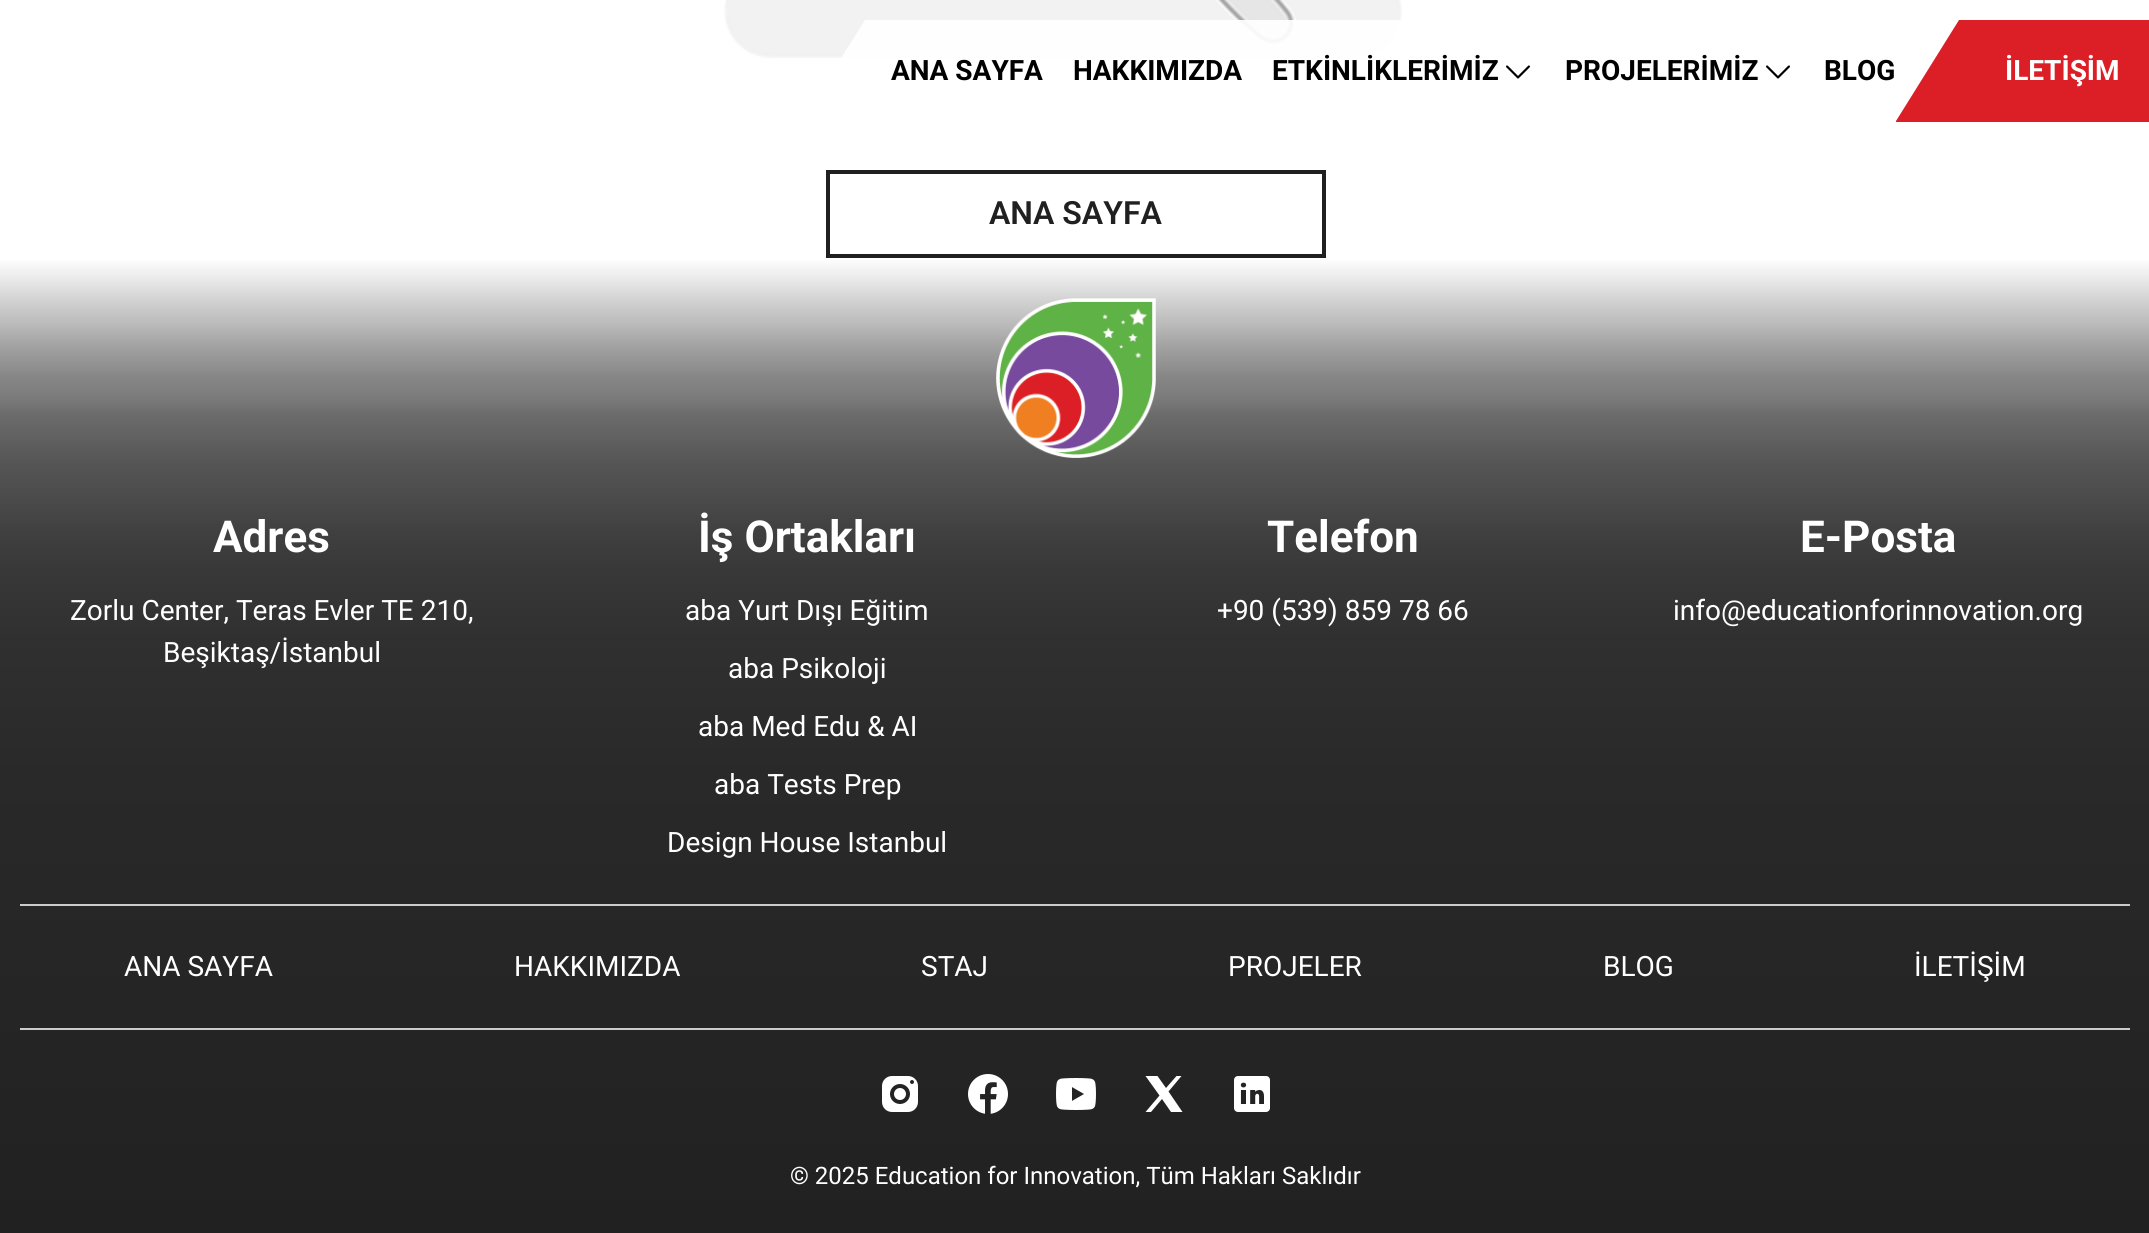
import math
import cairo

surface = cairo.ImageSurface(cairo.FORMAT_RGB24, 2149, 1233)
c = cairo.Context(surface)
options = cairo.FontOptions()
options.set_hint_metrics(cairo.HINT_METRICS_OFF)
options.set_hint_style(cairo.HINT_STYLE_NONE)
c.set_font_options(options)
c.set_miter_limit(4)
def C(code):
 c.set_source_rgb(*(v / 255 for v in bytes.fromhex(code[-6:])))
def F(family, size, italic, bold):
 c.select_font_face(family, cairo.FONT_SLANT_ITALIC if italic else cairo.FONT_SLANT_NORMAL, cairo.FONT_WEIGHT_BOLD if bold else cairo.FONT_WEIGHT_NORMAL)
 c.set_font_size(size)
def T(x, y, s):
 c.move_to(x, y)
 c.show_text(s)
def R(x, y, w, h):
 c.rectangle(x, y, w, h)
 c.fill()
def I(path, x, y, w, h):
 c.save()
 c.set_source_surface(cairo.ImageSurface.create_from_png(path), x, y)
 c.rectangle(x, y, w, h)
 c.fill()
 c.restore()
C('ffffff')
c.paint()
I('2.png',724,0,678,58)
c.set_source_rgba(1,1,1,0.92)
c.new_path()
c.move_to(865,20)
c.line_to(801,122)
c.line_to(2090,122)
c.line_to(2090,20)
c.close_path()
c.fill()
F('Roboto',28,0,1)
C('000000')
T(891,80,'ANA SAYFA')
T(1073,80,'HAKKIMIZDA')
T(1272,80,'ETKİNLİKLERİMİZ')
I('1.png',1506,65,24,14)
T(1565,80,'PROJELERİMİZ')
I('1.png',1766,65,24,14)
T(1824,80,'BLOG')
C('dc1f26')
c.new_path()
c.move_to(1959,20)
c.line_to(1896,121)
c.line_to(1896,122)
c.line_to(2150,122)
c.line_to(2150,20)
c.close_path()
c.fill()
C('ffffff')
T(2005,80,'İLETİŞİM')
c.rectangle(828,172,496,84)
C('202020')
c.set_line_width(4)
c.stroke()
F('Roboto SemiBold',32,0,0)
T(989,224,'ANA SAYFA')
gradient = cairo.LinearGradient(1075,258,1075,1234)
gradient.add_color_stop_rgba(0,1,1,1,1)
gradient.add_color_stop_rgba(.01,0.961,0.961,0.961,1)
gradient.add_color_stop_rgba(.02,0.922,0.922,0.922,1)
gradient.add_color_stop_rgba(.03,0.878,0.878,0.878,1)
gradient.add_color_stop_rgba(.04,0.839,0.839,0.839,1)
gradient.add_color_stop_rgba(.05,0.8,0.8,0.8,1)
gradient.add_color_stop_rgba(.06,0.761,0.761,0.761,1)
gradient.add_color_stop_rgba(.07,0.722,0.722,0.722,1)
gradient.add_color_stop_rgba(.08,0.678,0.678,0.678,1)
gradient.add_color_stop_rgba(.09,0.639,0.639,0.639,1)
gradient.add_color_stop_rgba(.1,0.6,0.6,0.6,1)
gradient.add_color_stop_rgba(.11,0.569,0.569,0.569,1)
gradient.add_color_stop_rgba(.12,0.529,0.529,0.529,1)
gradient.add_color_stop_rgba(.14,0.49,0.49,0.49,1)
gradient.add_color_stop_rgba(.15,0.459,0.459,0.459,1)
gradient.add_color_stop_rgba(.16,0.42,0.42,0.42,1)
gradient.add_color_stop_rgba(.18,0.388,0.388,0.388,1)
gradient.add_color_stop_rgba(.2,0.349,0.349,0.349,1)
gradient.add_color_stop_rgba(.22,0.322,0.322,0.322,1)
gradient.add_color_stop_rgba(.25,0.29,0.29,0.29,1)
gradient.add_color_stop_rgba(.28,0.251,0.251,0.251,1)
gradient.add_color_stop_rgba(.32,0.22,0.22,0.22,1)
gradient.add_color_stop_rgba(.39,0.188,0.188,0.188,1)
gradient.add_color_stop_rgba(.53,0.161,0.161,0.161,1)
gradient.add_color_stop_rgba(1,0.129,0.129,0.129,1)
c.set_source(gradient)
R(0,260,2149,973)
I('3.png',996,298,160,160)
F('Roboto',44,0,1)
C('ffffff')
T(213,552,'Adres')
F('Roboto',28,0,0)
T(70,620,'Zorlu Center, Teras Evler TE 210,')
T(163,662,'Beşiktaş/İstanbul')
F('Roboto',44,0,1)
T(698,552,'İş Ortakları')
F('Roboto',28,0,0)
T(685,620,'aba Yurt Dışı Eğitim')
T(728,678,'aba Psikoloji')
T(698,736,'aba Med Edu & AI')
T(714,794,'aba Tests Prep')
T(667,852,'Design House Istanbul')
F('Roboto',44,0,1)
T(1267,552,'Telefon')
F('Roboto',28,0,0)
T(1217,620,'+90 (539) 859 78 66')
F('Roboto',44,0,1)
T(1800,552,'E-Posta')
F('Roboto',28,0,0)
T(1673,620,'info@educationforinnovation.org')
C('cccccc')
R(20,904,2110,2)
C('ffffff')
T(124,976,'ANA SAYFA')
T(514,976,'HAKKIMIZDA')
T(921,976,'STAJ')
T(1228,976,'PROJELER')
T(1603,976,'BLOG')
T(1914,976,'İLETİŞİM')
C('cccccc')
R(20,1028,2110,2)
I('4.png',882,1076,36,36)
I('5.png',968,1074,40,40)
I('6.png',1056,1078,40,32)
C('ffffff')
c.new_path()
c.move_to(1145.5,1076)
c.line_to(1159.5,1095.5)
c.line_to(1145.5,1112)
c.line_to(1151,1112)
c.line_to(1162,1099)
c.line_to(1171,1112)
c.line_to(1182.5,1112)
c.line_to(1168.5,1091.5)
c.line_to(1181.5,1076)
c.line_to(1176.5,1076)
c.line_to(1166,1088)
c.line_to(1157.5,1076)
c.close_path()
c.fill()
I('7.png',1234,1076,36,36)
F('Roboto',24,0,0)
T(790,1184,'© 2025 Education for Innovation, Tüm Hakları Saklıdır')
surface.write_to_png('o.png')
